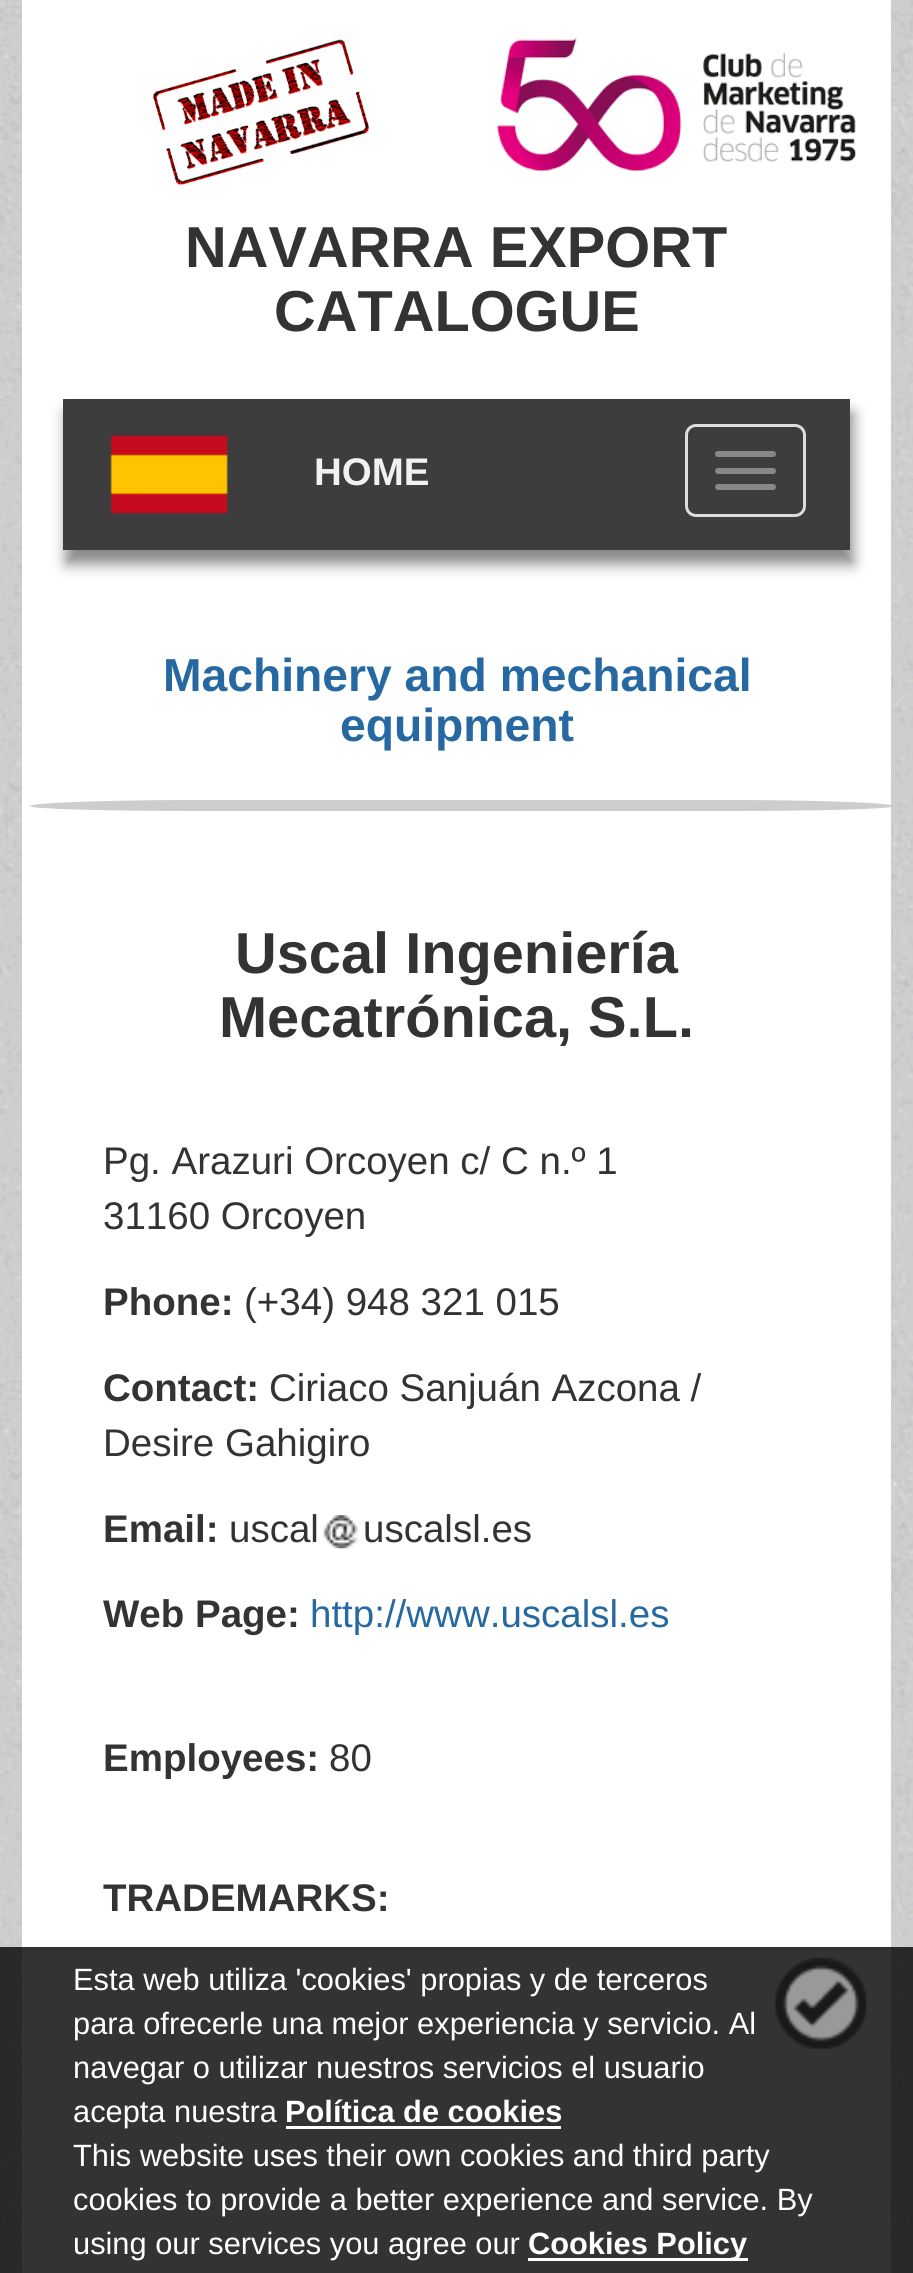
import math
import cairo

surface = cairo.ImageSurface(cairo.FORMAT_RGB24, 913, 2273)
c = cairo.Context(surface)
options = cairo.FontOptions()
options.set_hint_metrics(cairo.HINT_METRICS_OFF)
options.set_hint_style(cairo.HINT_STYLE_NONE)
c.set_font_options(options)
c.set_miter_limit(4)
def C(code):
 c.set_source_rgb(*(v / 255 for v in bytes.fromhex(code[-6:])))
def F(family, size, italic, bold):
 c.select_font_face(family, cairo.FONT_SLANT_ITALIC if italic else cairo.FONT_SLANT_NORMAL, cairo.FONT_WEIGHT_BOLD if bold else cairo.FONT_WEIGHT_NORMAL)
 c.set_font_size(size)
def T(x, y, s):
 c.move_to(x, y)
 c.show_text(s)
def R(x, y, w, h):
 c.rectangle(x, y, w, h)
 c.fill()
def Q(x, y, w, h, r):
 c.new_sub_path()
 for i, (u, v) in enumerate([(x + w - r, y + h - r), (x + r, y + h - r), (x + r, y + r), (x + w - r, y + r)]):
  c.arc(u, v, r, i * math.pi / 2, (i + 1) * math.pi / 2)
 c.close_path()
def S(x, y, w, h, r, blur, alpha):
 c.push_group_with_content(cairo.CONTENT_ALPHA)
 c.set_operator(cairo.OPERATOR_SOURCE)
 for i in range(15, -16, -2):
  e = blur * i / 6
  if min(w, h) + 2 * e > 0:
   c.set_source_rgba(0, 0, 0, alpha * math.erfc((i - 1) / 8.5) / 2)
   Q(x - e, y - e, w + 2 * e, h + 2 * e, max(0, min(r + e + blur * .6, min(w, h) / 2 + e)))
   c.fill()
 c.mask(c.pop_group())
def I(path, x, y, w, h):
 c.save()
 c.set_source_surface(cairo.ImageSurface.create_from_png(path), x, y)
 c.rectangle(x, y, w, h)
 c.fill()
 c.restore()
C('ffffff')
c.paint()
I('1.png',0,0,913,2273)
C('ffffff')
R(22,0,869,2273)
I('2.png',152,39,218,146)
I('3.png',497,38,359,133)
F('Liberation Sans',57.75,0,1)
C('333333')
T(185,267,'NAVARRA EXPORT')
T(274,331,'CATALOGUE')
C('888888')
S(66,413,787,151,0,7,1)
C('3d3d3d')
R(63,399,787,151)
I('4.png',110,435,118,79)
F('Liberation Sans',38.5,0,1)
C('f1f1f1')
T(314,485,'HOME')
Q(686.5,425.5,118,90,9.5)
C('dddddd')
c.set_line_width(3)
c.stroke()
C('888888')
Q(715,451,61,6,3)
c.fill()
Q(715,468,61,6,3)
c.fill()
Q(715,484,61,6,3)
c.fill()
F('Liberation Sans',46.25,0,1)
C('2668a1')
T(163,691,'Machinery and mechanical')
T(340,741,'equipment')
C('cdcdcd')
c.new_path()
c.move_to(195,800)
c.line_to(729,800)
c.curve_to(820,800,894,803,894,806)
c.curve_to(894,809,820,811,729,811)
c.line_to(195,811)
c.curve_to(104,811,30,809,30,806)
c.curve_to(30,803,104,800,195,800)
c.close_path()
c.fill()
F('Liberation Sans',57.75,0,1)
C('333333')
T(235,973,'Uscal Ingeniería')
T(219,1037,'Mecatrónica, S.L.')
F('Liberation Sans',38.5,0,0)
T(103,1174,'Pg. Arazuri Orcoyen c/ C n.º 1')
T(103,1229,'31160 Orcoyen')
F('Liberation Sans',38.5,0,1)
T(103,1315,'Phone:')
F('Liberation Sans',38.5,0,0)
T(244,1315,'(+34) 948 321 015')
F('Liberation Sans',38.5,0,1)
T(103,1401,'Contact:')
F('Liberation Sans',38.5,0,0)
T(269,1401,'Ciriaco Sanjuán Azcona /')
T(103,1456,'Desire Gahigiro')
F('Liberation Sans',38.5,0,1)
T(103,1542,'Email:')
F('Liberation Sans',38.5,0,0)
T(229,1542,'uscal')
I('5.png',323,1515,36,34)
T(363,1542,'uscalsl.es')
F('Liberation Sans',38.5,0,1)
T(103,1627,'Web Page:')
F('Liberation Sans',38.5,0,0)
C('2668a1')
T(310,1627,'http://www.uscalsl.es')
F('Liberation Sans',38.5,0,1)
C('333333')
T(103,1771,'Employees:')
F('Liberation Sans',38.5,0,0)
T(329,1771,'80')
F('Liberation Sans',38.5,0,1)
T(103,1911,'TRADEMARKS:')
c.set_source_rgba(0,0,0,0.8)
R(0,1947,913,326)
F('Liberation Sans',30.8,0,0)
C('ffffff')
T(73,1990,'Esta web utiliza \'cookies\' propias y de terceros')
I('6.png',775,1957,92,92)
T(73,2034,'para ofrecerle una mejor experiencia y servicio. Al')
T(73,2078,'navegar o utilizar nuestros servicios el usuario')
T(73,2122,'acepta nuestra')
F('Liberation Sans',30.8,0,1)
T(285,2122,'Política de cookies')
R(286,2126,275,3)
F('Liberation Sans',30.8,0,0)
T(73,2166,'This website uses their own cookies and third party')
T(73,2210,'cookies to provide a better experience and service. By')
T(73,2254,'using our services you agree our')
R(528,2258,220,3)
F('Liberation Sans',30.8,0,1)
T(528,2254,'Cookies Policy')
surface.write_to_png('o.png')
